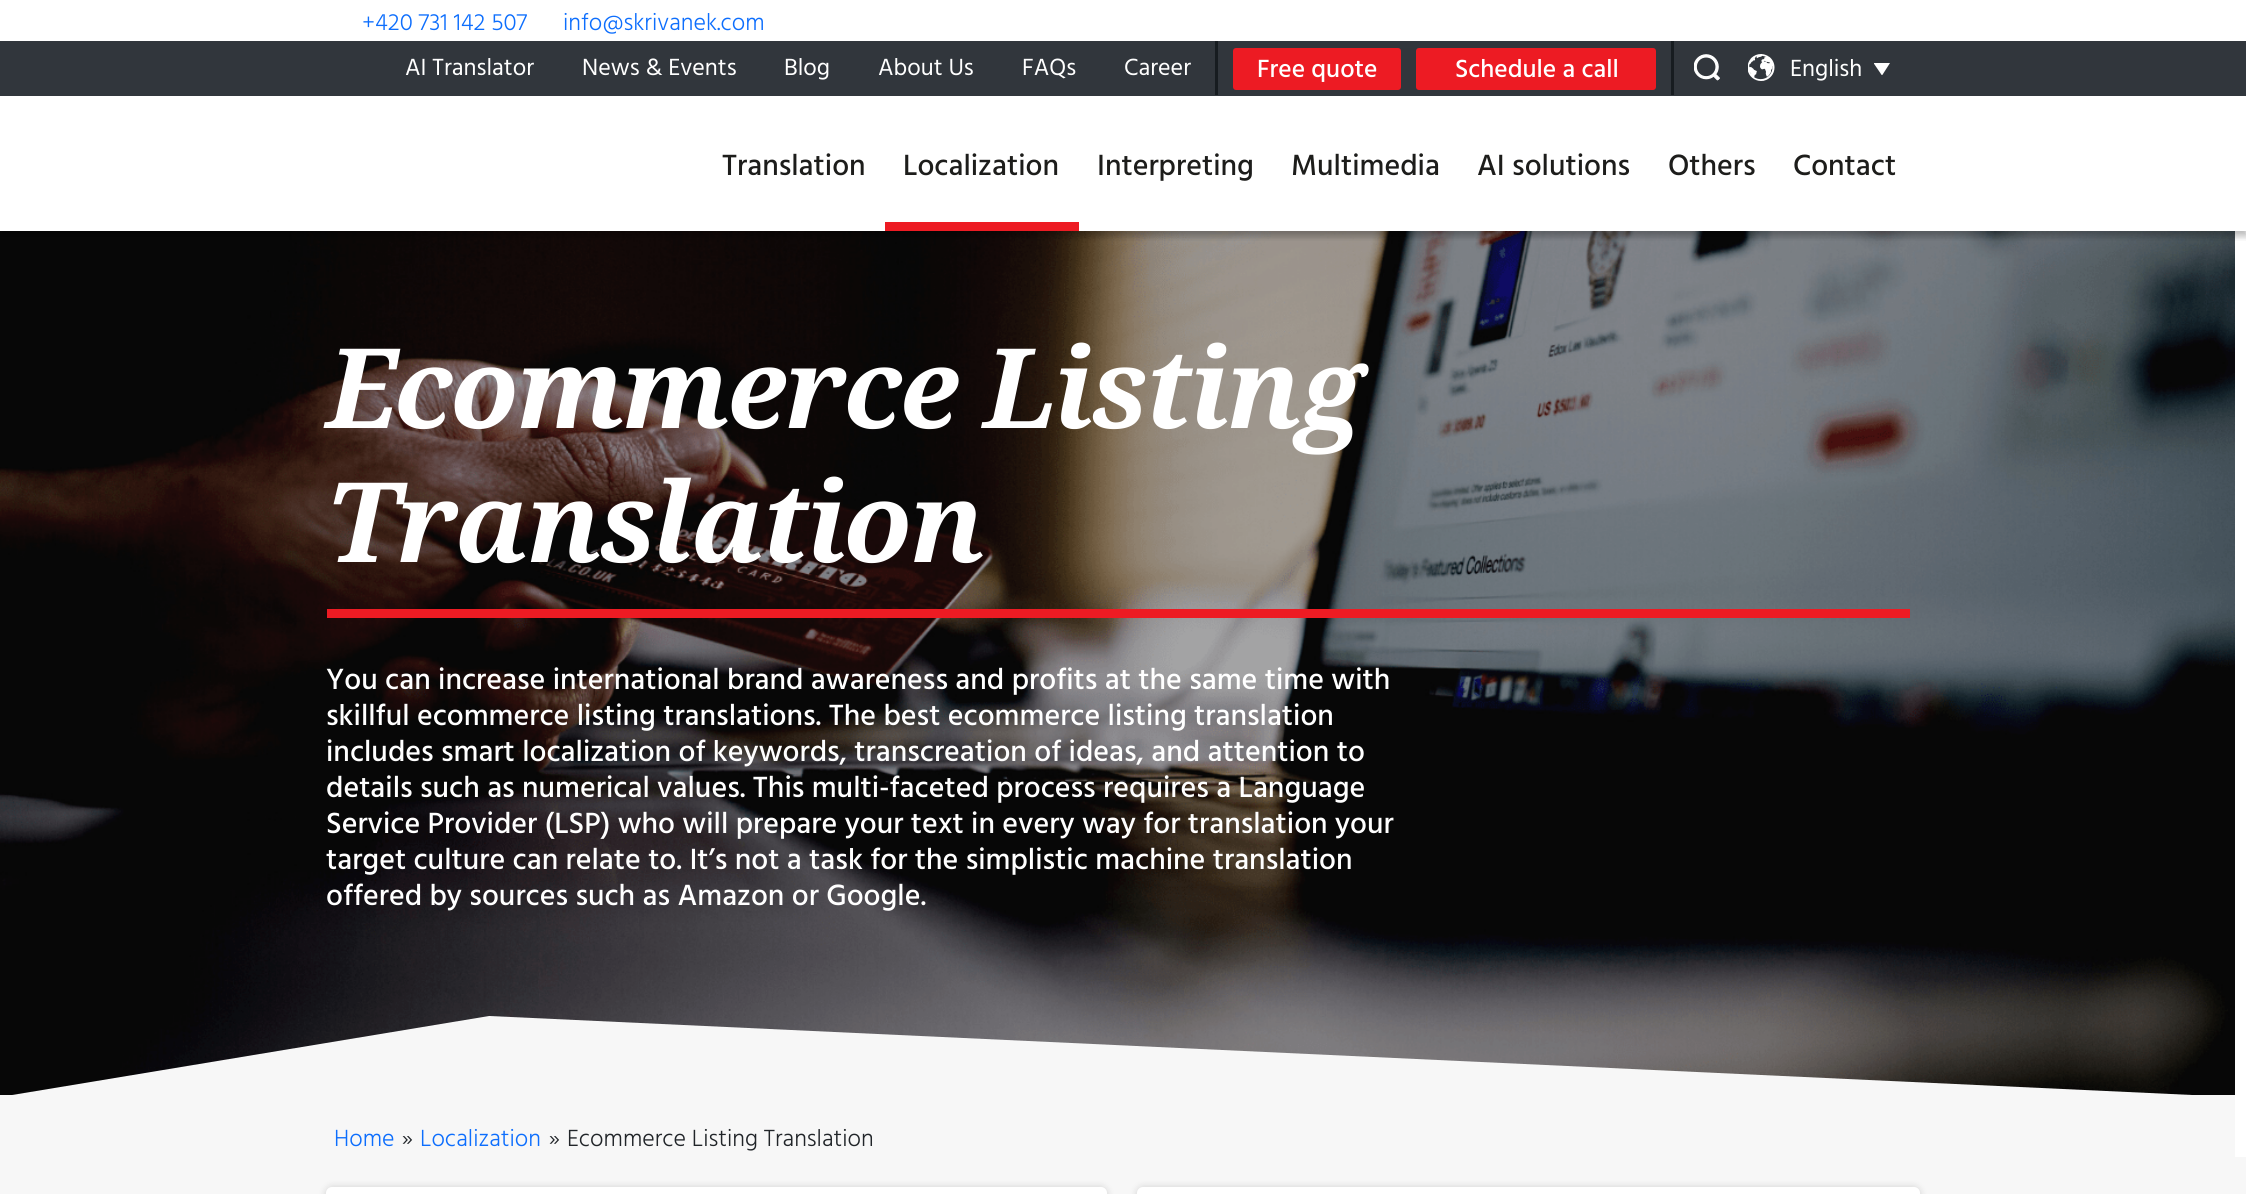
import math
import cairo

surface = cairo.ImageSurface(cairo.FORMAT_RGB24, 2246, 1194)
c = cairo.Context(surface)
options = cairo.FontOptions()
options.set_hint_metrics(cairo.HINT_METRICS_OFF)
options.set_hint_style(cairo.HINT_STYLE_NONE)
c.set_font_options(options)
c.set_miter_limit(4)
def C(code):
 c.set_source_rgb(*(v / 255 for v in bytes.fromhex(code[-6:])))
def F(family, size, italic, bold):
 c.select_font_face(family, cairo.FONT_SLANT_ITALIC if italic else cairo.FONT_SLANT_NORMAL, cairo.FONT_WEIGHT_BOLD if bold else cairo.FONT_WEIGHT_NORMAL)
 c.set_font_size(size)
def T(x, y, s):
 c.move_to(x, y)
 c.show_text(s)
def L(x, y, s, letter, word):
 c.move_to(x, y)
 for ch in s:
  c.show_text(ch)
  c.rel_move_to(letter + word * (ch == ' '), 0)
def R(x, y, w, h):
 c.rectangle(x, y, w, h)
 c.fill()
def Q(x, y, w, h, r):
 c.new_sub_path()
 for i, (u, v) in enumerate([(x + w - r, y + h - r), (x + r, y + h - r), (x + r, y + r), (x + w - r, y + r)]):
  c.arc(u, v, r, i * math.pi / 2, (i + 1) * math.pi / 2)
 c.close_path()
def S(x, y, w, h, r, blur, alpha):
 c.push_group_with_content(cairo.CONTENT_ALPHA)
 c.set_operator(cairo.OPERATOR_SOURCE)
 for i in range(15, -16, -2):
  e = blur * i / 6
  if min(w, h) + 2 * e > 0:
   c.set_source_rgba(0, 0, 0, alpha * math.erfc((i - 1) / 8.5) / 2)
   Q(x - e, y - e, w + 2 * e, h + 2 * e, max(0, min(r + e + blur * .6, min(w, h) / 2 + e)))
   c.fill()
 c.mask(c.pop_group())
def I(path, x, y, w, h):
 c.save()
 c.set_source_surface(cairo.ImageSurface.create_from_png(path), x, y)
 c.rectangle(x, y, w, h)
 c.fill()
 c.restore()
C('ffffff')
c.paint()
I('3.png',0,231,2235,864)
c.save()
c.rectangle(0,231,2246,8)
c.clip()
C('000000')
S(0,5,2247,231,0,4,.1)
c.restore()
F('Hind Light',24,0,0)
C('0d6efd')
T(362,30,'+420 731 142 507')
T(563,30,'info@skrivanek.com')
c.save()
c.rectangle(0,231,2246,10)
c.clip()
C('000000')
S(0,101,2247,135,0,4,.2)
c.restore()
C('31363c')
R(0,41,2246,55)
F('Hind',24,0,0)
C('ffffff')
T(405,75,'AI Translator')
T(582,75,'News & Events')
T(784,75,'Blog')
T(878,75,'About Us')
T(1022,75,'FAQs')
T(1124,75,'Career')
C('171c20')
R(1215,41,3,54)
C('ed1b23')
Q(1234,49,166,40,2)
c.fill_preserve()
c.stroke()
F('Hind Medium',25.5,0,0)
C('ffffff')
T(1257,77,'Free quote')
C('ed1b23')
Q(1417,49,238,40,2)
c.fill_preserve()
c.stroke()
C('ffffff')
T(1455,77,'Schedule a call')
C('171c20')
R(1671,41,3,54)
I('1.png',1694,54,26,27)
I('2.png',1748,54,27,27)
F('Hind',24,0,0)
C('ffffff')
T(1790,76,'English')
c.save()
c.rectangle(1874,63,16,12)
c.clip()
c.new_path()
c.move_to(1882,75.5)
c.line_to(1873.5,63)
c.line_to(1890,63)
c.close_path()
c.fill()
c.restore()
F('Hind Medium',30,0,0)
C('1d1d1b')
T(722,175,'Translation')
C('ed1b23')
R(885,222,194,9)
C('1d1d1b')
T(903,175,'Localization')
T(1097,175,'Interpreting')
T(1291,175,'Multimedia')
T(1477,175,'AI solutions')
T(1668,175,'Others')
T(1793,175,'Contact')
C('ed1b23')
R(327,609,1583,9)
F('Noto Serif',111,1,1)
C('ffffff')
L(326,428,'Ecommerce Listing',-2.25,0)
L(326,562,'Translation',-2.25,0)
F('Hind Medium',30,0,0)
T(326,689,'You can increase international brand awareness and profits at the same time with')
T(326,725,'skillful ecommerce listing translations. The best ecommerce listing translation')
T(326,761,'includes smart localization of keywords, transcreation of ideas, and attention to')
T(326,797,'details such as numerical values. This multi-faceted process requires a Language')
T(326,833,'Service Provider (LSP) who will prepare your text in every way for translation your')
T(326,869,'target culture can relate to. It’s not a task for the simplistic machine translation')
T(326,905,'offered by sources such as Amazon or Google.')
C('f7f7f7')
R(0,1095,2235,62)
c.new_path()
c.move_to(489,1016)
c.line_to(0,1097)
c.line_to(2235,1097)
c.close_path()
c.fill()
F('Hind Light',24,0,0)
C('0d6efd')
T(334,1146,'Home')
C('212529')
T(402,1146,'»')
C('0d6efd')
T(420,1146,'Localization')
C('212529')
T(549,1146,'»')
T(567,1146,'Ecommerce Listing Translation')
C('f7f7f7')
R(0,1157,2246,37)
C('000000')
S(326,1187,781,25,6,4,.15)
C('ffffff')
Q(326,1187,781,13,6)
c.fill()
C('000000')
S(1137,1187,783,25,6,4,.15)
C('ffffff')
Q(1137,1187,783,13,6)
c.fill()
surface.write_to_png('o.png')
